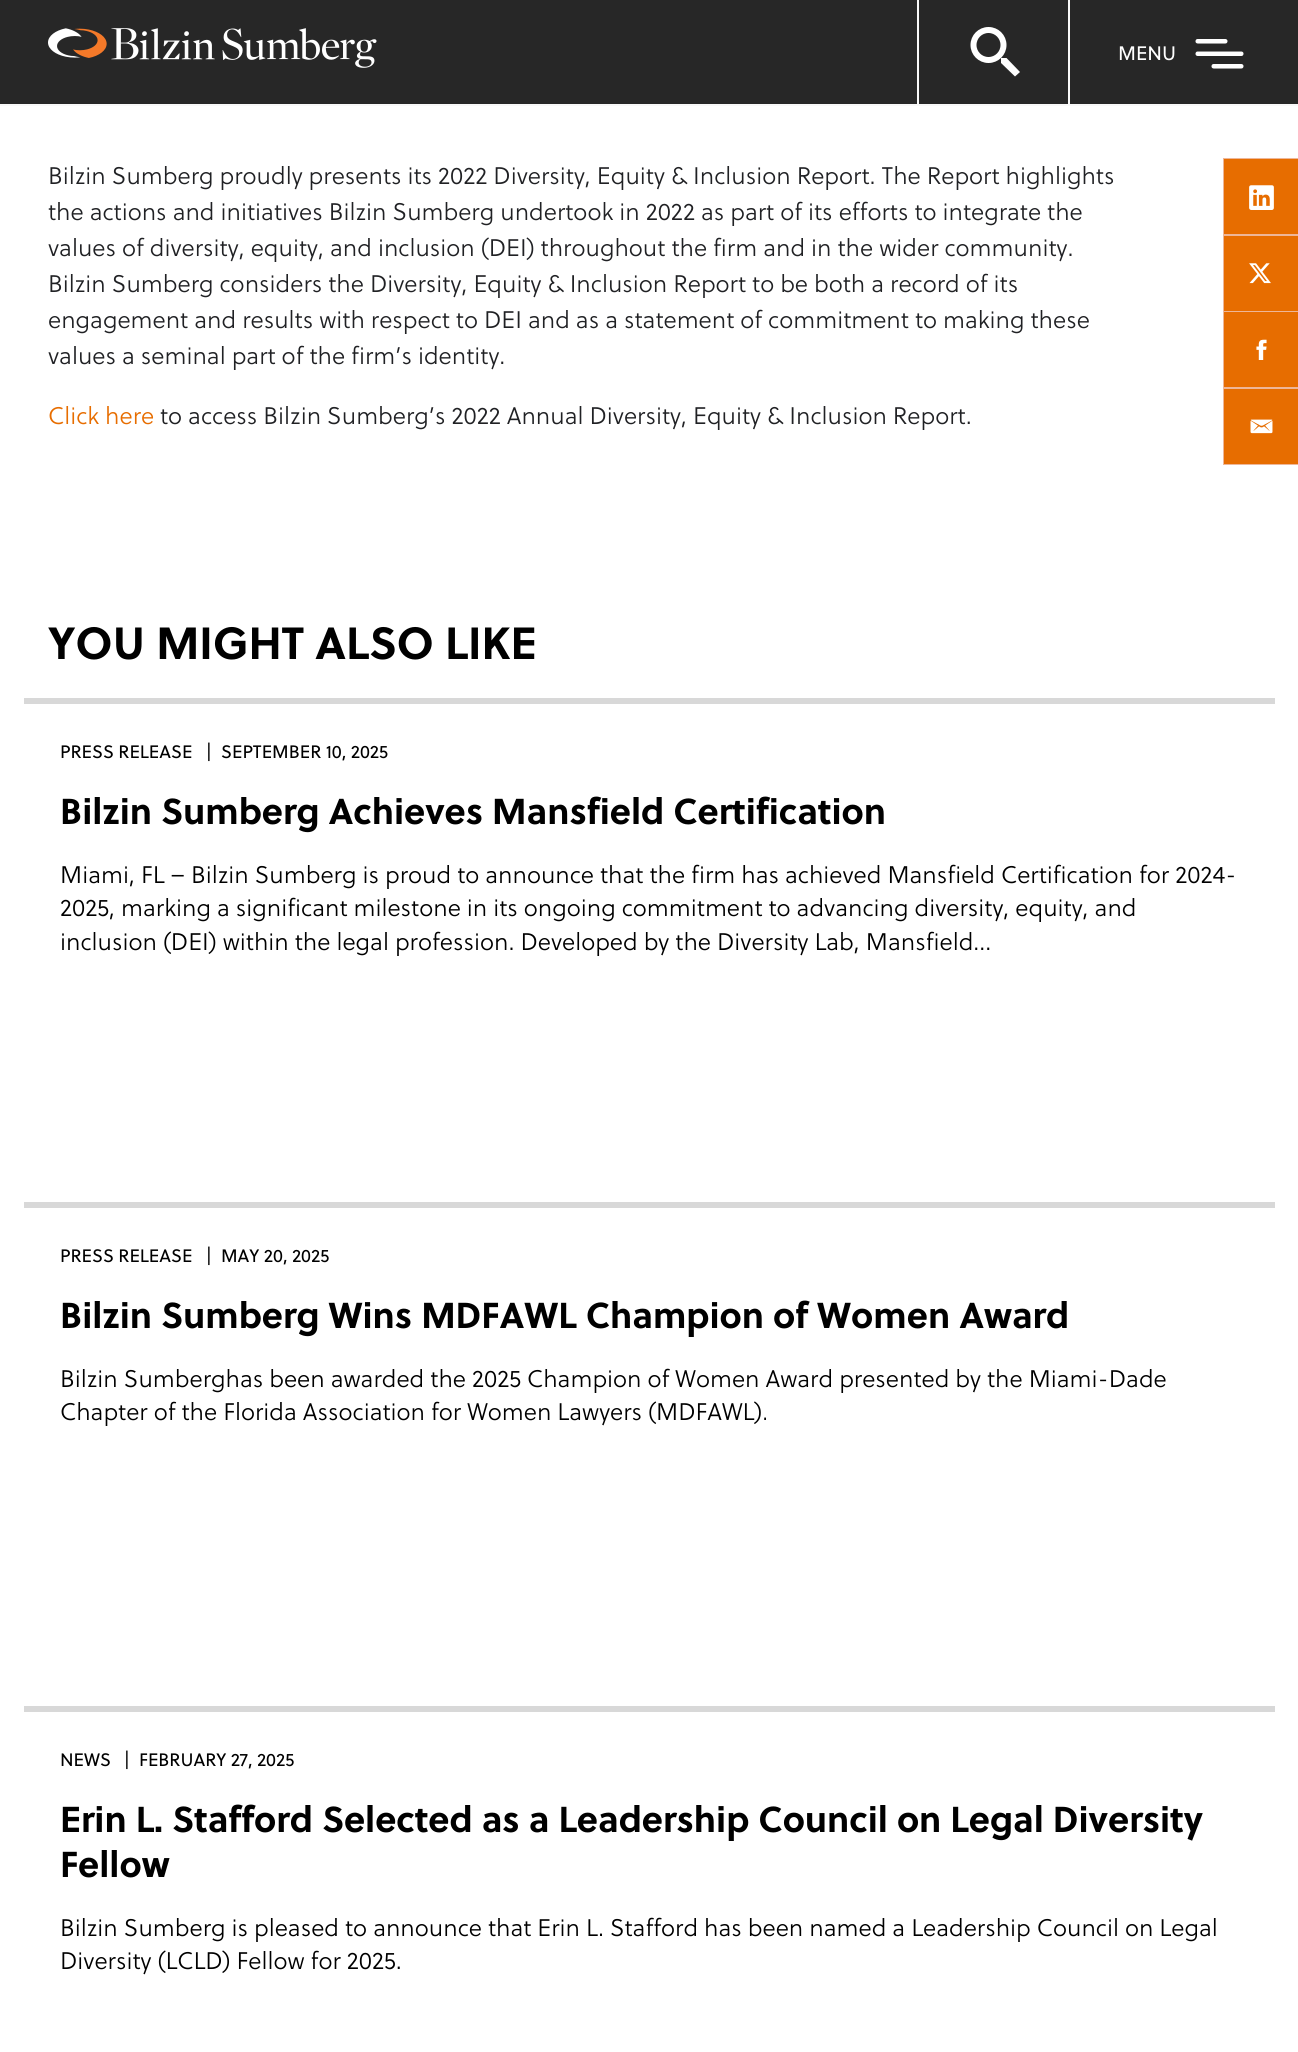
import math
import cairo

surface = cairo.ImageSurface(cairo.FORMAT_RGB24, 1298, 2052)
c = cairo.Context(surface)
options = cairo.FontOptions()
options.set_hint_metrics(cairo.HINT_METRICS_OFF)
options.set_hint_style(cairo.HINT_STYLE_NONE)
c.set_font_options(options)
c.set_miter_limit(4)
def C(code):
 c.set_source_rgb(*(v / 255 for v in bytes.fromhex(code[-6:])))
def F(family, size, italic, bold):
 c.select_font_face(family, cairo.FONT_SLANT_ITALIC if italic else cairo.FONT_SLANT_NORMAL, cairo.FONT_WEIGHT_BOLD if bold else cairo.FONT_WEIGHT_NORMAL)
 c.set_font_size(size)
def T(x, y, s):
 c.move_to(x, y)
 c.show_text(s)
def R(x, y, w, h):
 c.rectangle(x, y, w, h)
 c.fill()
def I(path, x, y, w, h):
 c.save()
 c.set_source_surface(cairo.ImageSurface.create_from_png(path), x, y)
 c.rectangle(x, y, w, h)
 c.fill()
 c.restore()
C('ffffff')
c.paint()
C('272727')
R(0,0,1298,104)
C('f8f8f8')
R(0,104,1298,2)
I('1.png',48,28,329,40)
R(1068,0,2,104)
R(917,0,2,104)
C('ffffff')
c.new_path()
c.move_to(1001,63)
c.line_to(1001,58)
c.line_to(1006.5,58)
c.line_to(1020,72)
c.line_to(1015,76.5)
c.close_path()
c.fill()
c.arc(988.5,45,15,0,2 * math.pi)
c.set_line_width(6)
c.stroke()
F('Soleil',19.5,0,0)
T(1118,60,'MENU')
I('2.png',1195,39,49,30)
F('Soleil Light',24,0,0)
C('202124')
T(48,184,'Bilzin Sumberg proudly presents its 2022 Diversity, Equity & Inclusion Report. The Report highlights')
T(48,220,'the actions and initiatives Bilzin Sumberg undertook in 2022 as part of its efforts to integrate the')
T(48,256,'values of diversity, equity, and inclusion (DEI) throughout the firm and in the wider community.')
T(48,292,'Bilzin Sumberg considers the Diversity, Equity & Inclusion Report to be both a record of its')
T(48,328,'engagement and results with respect to DEI and as a statement of commitment to making these')
T(48,364,'values a seminal part of the firm’s identity.')
C('e76d00')
T(48,424,'Click here')
C('202124')
T(160,424,'to access Bilzin Sumberg’s 2022 Annual Diversity, Equity & Inclusion Report.')
c.rectangle(1224,159,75,76)
C('eeb698')
c.set_line_width(2)
c.stroke()
C('e76d00')
R(1224,159,74,75)
I('3.png',1249,185,25,25)
c.rectangle(1224,235,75,76)
C('eeb698')
c.stroke()
C('e76d00')
R(1224,236,74,75)
I('4.png',1249,263,22,21)
c.rectangle(1224,312,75,76)
C('eeb698')
c.stroke()
C('e76d00')
R(1224,312,74,75)
I('5.png',1256,339,11,21)
c.rectangle(1224,388,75,76)
C('eeb698')
c.stroke()
C('e76d00')
R(1224,389,74,75)
I('6.png',1250,419,23,15)
F('Soleil',45,0,1)
C('000000')
T(48,659,'YOU MIGHT ALSO LIKE')
C('d8d8d8')
R(24,698,1251,6)
F('Soleil',18,0,0)
C('000000')
T(60,758,'PRESS RELEASE')
T(206,758,'|')
T(221,758,'SEPTEMBER 10, 2025')
F('Soleil',36,0,1)
T(60,824,'Bilzin Sumberg Achieves Mansfield Certification')
F('Soleil Light',24,0,0)
T(60,883,'Miami, FL – Bilzin Sumberg is proud to announce that the firm has achieved Mansfield Certification for 2024-')
T(60,916,'2025, marking a significant milestone in its ongoing commitment to advancing diversity, equity, and')
T(60,950,'inclusion (DEI) within the legal profession. Developed by the Diversity Lab, Mansfield...')
C('d8d8d8')
R(24,1202,1251,6)
F('Soleil',18,0,0)
C('000000')
T(60,1262,'PRESS RELEASE')
T(206,1262,'|')
T(221,1262,'MAY 20, 2025')
F('Soleil',36,0,1)
T(60,1328,'Bilzin Sumberg Wins MDFAWL Champion of Women Award')
F('Soleil Light',24,0,0)
T(60,1387,'Bilzin Sumberghas been awarded the 2025 Champion of Women Award presented by the Miami-Dade')
T(60,1420,'Chapter of the Florida Association for Women Lawyers (MDFAWL).')
C('d8d8d8')
R(24,1706,1251,6)
F('Soleil',18,0,0)
C('000000')
T(60,1766,'NEWS')
T(124,1766,'|')
T(139,1766,'FEBRUARY 27, 2025')
F('Soleil',36,0,1)
T(60,1832,'Erin L. Stafford Selected as a Leadership Council on Legal Diversity')
T(60,1877,'Fellow')
F('Soleil Light',24,0,0)
T(60,1936,'Bilzin Sumberg is pleased to announce that Erin L. Stafford has been named a Leadership Council on Legal')
T(60,1969,'Diversity (LCLD) Fellow for 2025.')
surface.write_to_png('o.png')
